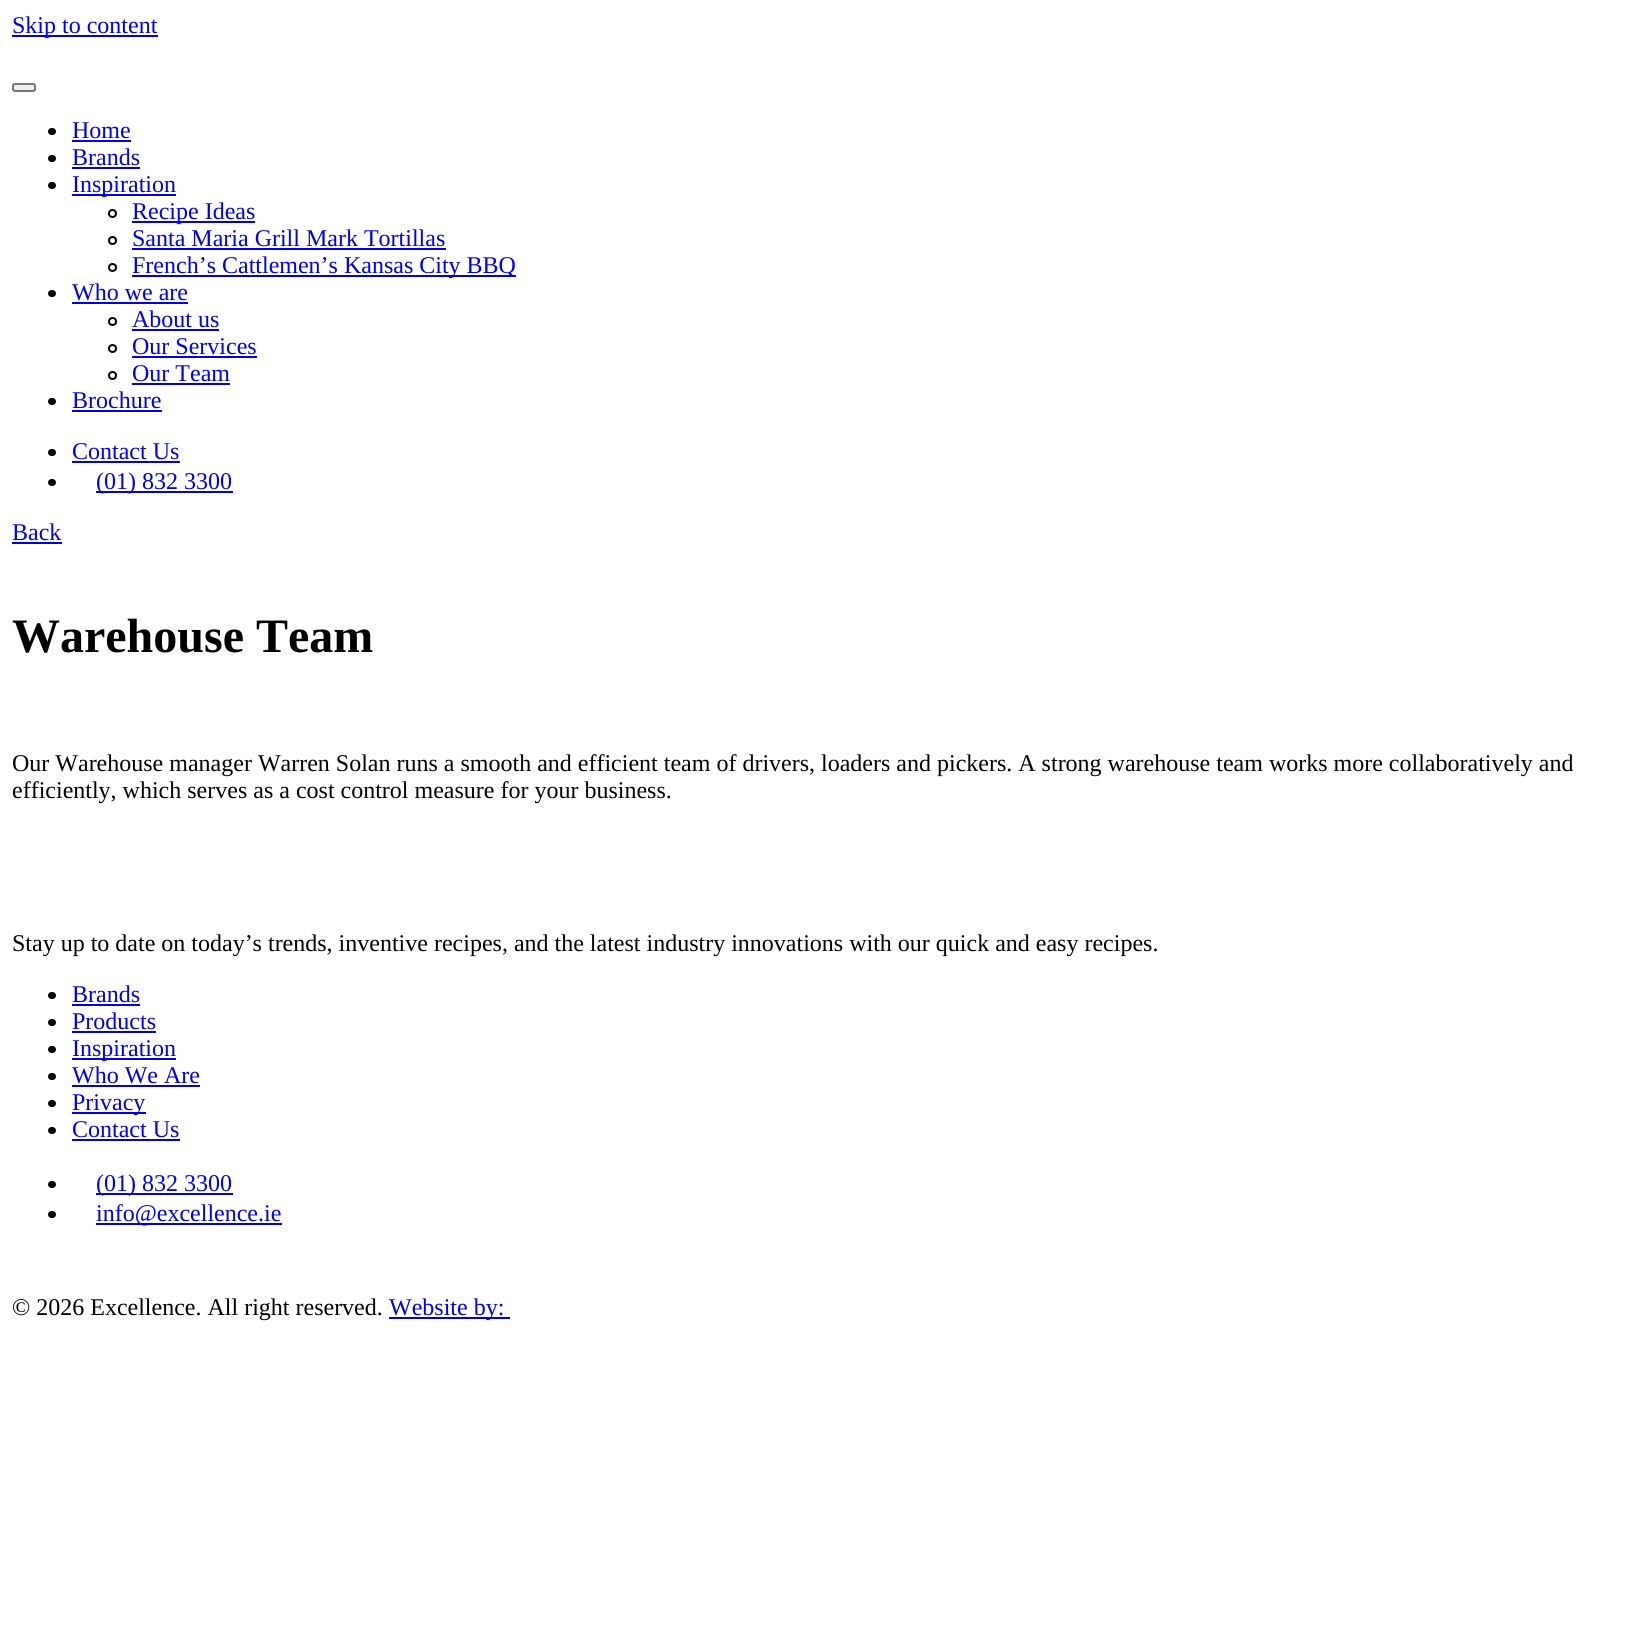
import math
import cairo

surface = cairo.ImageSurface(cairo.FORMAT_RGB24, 1641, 1629)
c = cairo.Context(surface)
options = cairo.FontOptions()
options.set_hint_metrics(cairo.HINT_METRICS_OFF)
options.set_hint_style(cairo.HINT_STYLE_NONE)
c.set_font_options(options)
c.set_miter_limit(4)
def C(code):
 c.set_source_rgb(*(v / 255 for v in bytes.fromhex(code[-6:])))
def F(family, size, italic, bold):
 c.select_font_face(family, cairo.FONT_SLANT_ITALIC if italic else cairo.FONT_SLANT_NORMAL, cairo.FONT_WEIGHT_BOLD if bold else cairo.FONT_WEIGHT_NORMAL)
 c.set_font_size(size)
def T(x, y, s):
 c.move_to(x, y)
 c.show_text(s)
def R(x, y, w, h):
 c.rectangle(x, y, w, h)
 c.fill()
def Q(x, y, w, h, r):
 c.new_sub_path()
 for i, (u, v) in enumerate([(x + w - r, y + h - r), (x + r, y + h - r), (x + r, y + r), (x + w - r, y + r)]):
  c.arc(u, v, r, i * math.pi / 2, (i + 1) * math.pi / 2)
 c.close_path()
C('ffffff')
c.paint()
C('0000ee')
R(12,35,146,2)
F('Liberation Serif',24,0,0)
T(12,33,'Skip to content')
C('efefef')
Q(13,84,22,7,2)
c.fill_preserve()
C('767676')
c.stroke()
C('000000')
Q(48,128,8,7,3.5)
c.fill()
C('0000ee')
T(72,138,'Home')
R(72,140,59,2)
C('000000')
Q(48,155,8,7,3.5)
c.fill()
C('0000ee')
T(72,165,'Brands')
R(72,167,68,2)
C('000000')
Q(48,182,8,7,3.5)
c.fill()
C('0000ee')
R(72,194,104,2)
T(72,192,'Inspiration')
c.new_path()
c.arc(112.5,213.5,3.5,0,2 * math.pi)
C('000000')
c.stroke()
C('0000ee')
R(132,221,123,2)
T(132,219,'Recipe Ideas')
c.new_path()
c.arc(112.5,240.5,3.5,0,2 * math.pi)
C('000000')
c.stroke()
C('0000ee')
T(132,246,'Santa Maria Grill Mark Tortillas')
R(132,248,314,2)
c.new_path()
c.arc(112.5,267.5,3.5,0,2 * math.pi)
C('000000')
c.stroke()
C('0000ee')
R(132,275,384,2)
T(132,273,'French’s Cattlemen’s Kansas City BBQ')
C('000000')
Q(48,290,8,7,3.5)
c.fill()
C('0000ee')
T(72,300,'Who we are')
R(72,302,116,2)
c.new_path()
c.arc(112.5,321.5,3.5,0,2 * math.pi)
C('000000')
c.stroke()
C('0000ee')
T(132,327,'About us')
R(132,329,87,2)
c.new_path()
c.arc(112.5,348.5,3.5,0,2 * math.pi)
C('000000')
c.stroke()
C('0000ee')
T(132,354,'Our Services')
R(132,356,125,2)
c.new_path()
c.arc(112.5,375.5,3.5,0,2 * math.pi)
C('000000')
c.stroke()
C('0000ee')
T(132,381,'Our Team')
R(132,383,98,2)
C('000000')
Q(48,398,8,7,3.5)
c.fill()
C('0000ee')
T(72,408,'Brochure')
R(72,410,90,2)
C('000000')
Q(48,449,8,7,3.5)
c.fill()
C('0000ee')
T(72,459,'Contact Us')
R(72,461,108,2)
C('000000')
Q(48,479,8,7,3.5)
c.fill()
C('0000ee')
R(96,491,137,2)
T(96,489,'(01) 832 3300')
T(12,540,'Back')
R(12,542,50,2)
F('Liberation Serif',48,0,1)
C('000000')
T(12,652,'Warehouse Team')
F('Liberation Serif',24,0,0)
T(12,771,'Our Warehouse manager Warren Solan runs a smooth and efficient team of drivers, loaders and pickers. A strong warehouse team works more collaboratively and')
T(12,798,'efficiently, which serves as a cost control measure for your business.')
T(12,951,'Stay up to date on today’s trends, inventive recipes, and the latest industry innovations with our quick and easy recipes.')
Q(48,992,8,7,3.5)
c.fill()
C('0000ee')
T(72,1002,'Brands')
R(72,1004,68,2)
C('000000')
Q(48,1019,8,7,3.5)
c.fill()
C('0000ee')
T(72,1029,'Products')
R(72,1031,84,2)
C('000000')
Q(48,1046,8,7,3.5)
c.fill()
C('0000ee')
R(72,1058,104,2)
T(72,1056,'Inspiration')
C('000000')
Q(48,1073,8,7,3.5)
c.fill()
C('0000ee')
T(72,1083,'Who We Are')
R(72,1085,128,2)
C('000000')
Q(48,1100,8,7,3.5)
c.fill()
C('0000ee')
R(72,1112,74,2)
T(72,1110,'Privacy')
C('000000')
Q(48,1127,8,7,3.5)
c.fill()
C('0000ee')
T(72,1137,'Contact Us')
R(72,1139,108,2)
C('000000')
Q(48,1181,8,7,3.5)
c.fill()
C('0000ee')
R(96,1193,137,2)
T(96,1191,'(01) 832 3300')
C('000000')
Q(48,1211,8,7,3.5)
c.fill()
C('0000ee')
R(96,1223,186,2)
T(96,1221,'info@excellence.ie')
C('000000')
T(12,1315,'© 2026 Excellence. All right reserved.')
C('0000ee')
R(389,1317,121,2)
T(389,1315,'Website by:')
surface.write_to_png('o.png')
